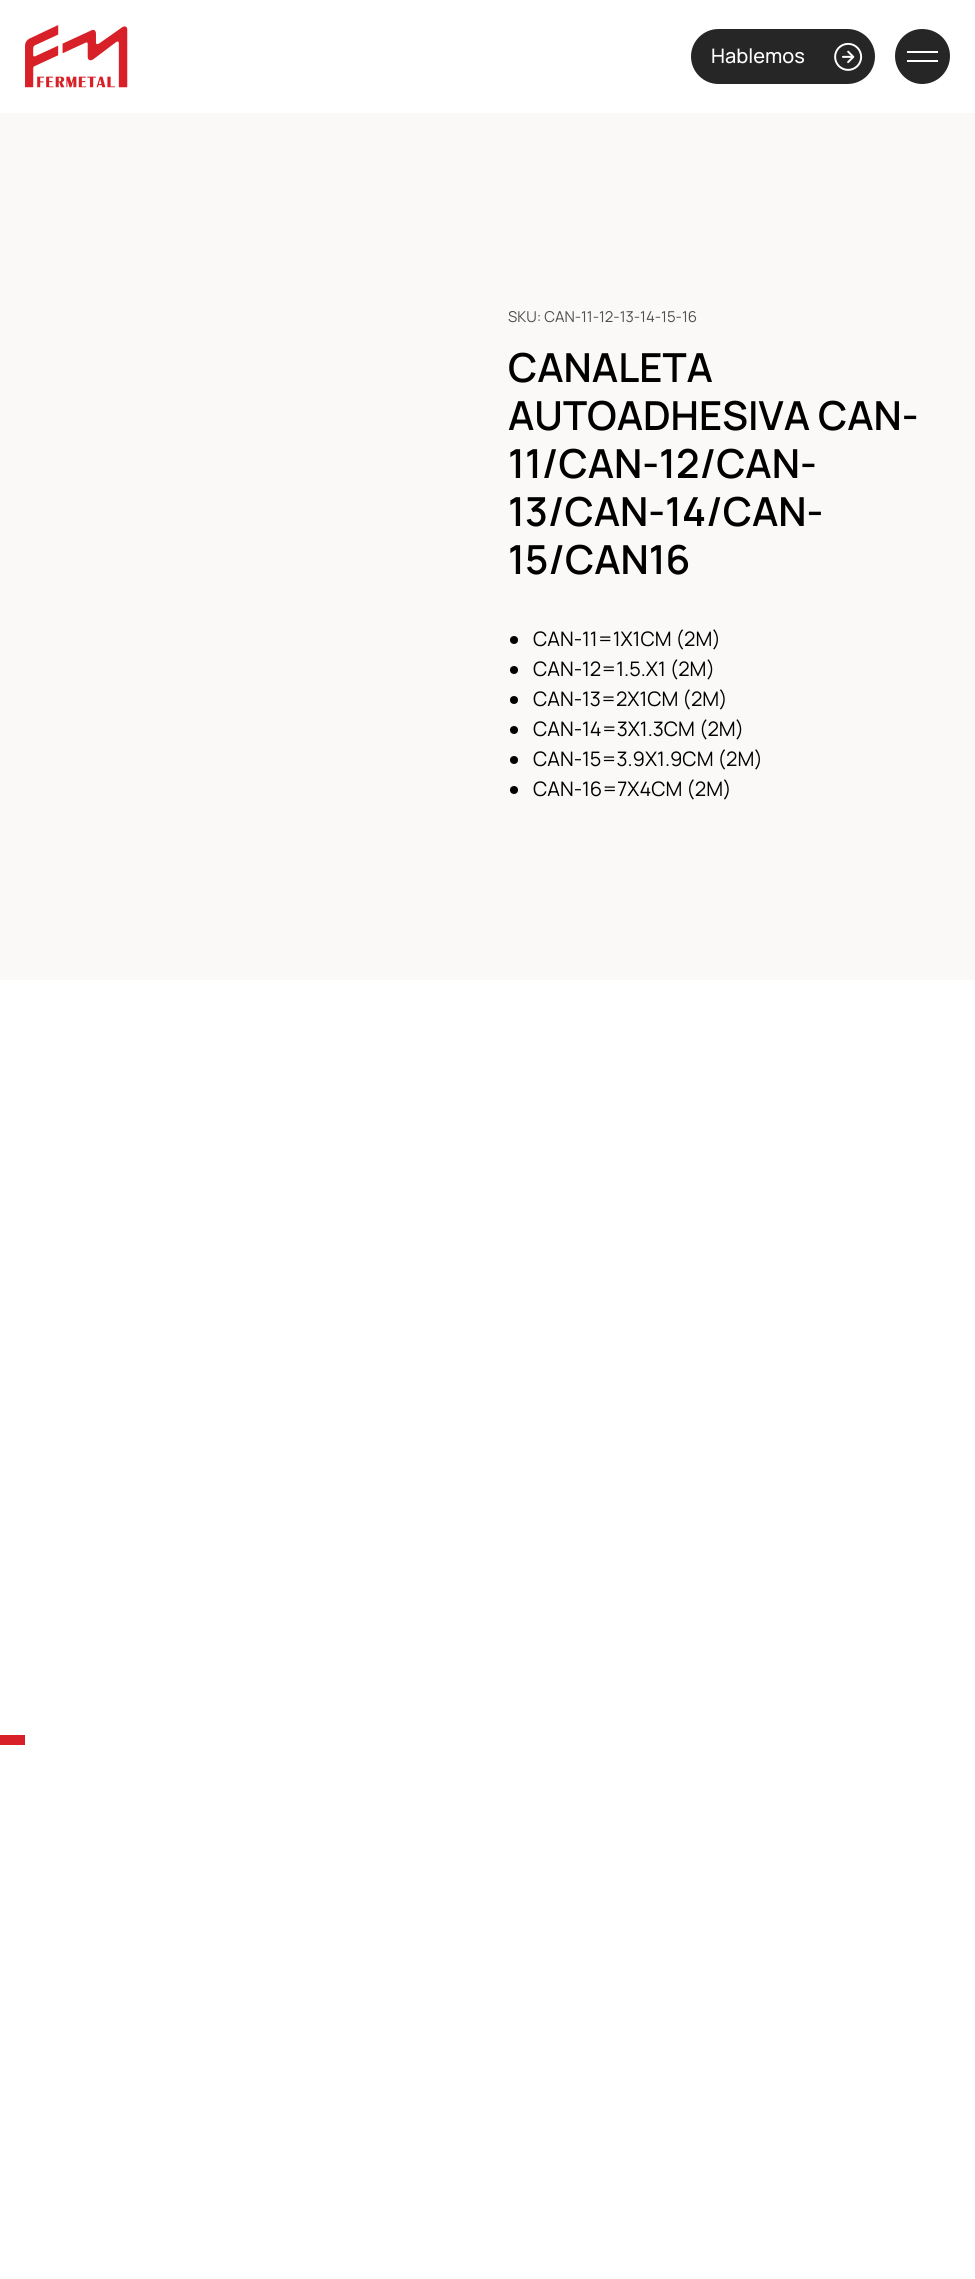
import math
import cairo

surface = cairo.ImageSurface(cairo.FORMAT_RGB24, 975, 2279)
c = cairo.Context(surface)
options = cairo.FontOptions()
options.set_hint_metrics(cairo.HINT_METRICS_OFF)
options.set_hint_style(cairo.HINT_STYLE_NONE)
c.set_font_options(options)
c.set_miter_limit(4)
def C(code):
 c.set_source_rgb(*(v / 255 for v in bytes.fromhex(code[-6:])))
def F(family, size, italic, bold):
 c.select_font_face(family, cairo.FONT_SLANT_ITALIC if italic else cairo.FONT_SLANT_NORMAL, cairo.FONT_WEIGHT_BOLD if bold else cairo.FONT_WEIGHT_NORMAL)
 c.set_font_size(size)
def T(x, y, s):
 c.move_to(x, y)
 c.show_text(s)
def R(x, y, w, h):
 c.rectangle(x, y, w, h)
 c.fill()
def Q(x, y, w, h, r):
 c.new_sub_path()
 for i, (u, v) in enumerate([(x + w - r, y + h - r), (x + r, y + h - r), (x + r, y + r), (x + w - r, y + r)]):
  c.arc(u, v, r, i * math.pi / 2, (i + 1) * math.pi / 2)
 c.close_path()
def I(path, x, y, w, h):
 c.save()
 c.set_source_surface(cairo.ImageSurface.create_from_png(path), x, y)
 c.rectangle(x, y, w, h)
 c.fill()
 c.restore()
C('ffffff')
c.paint()
I('1.png',25,25,103,63)
C('262626')
Q(691,29,184,55,27.5)
c.fill()
F('Manrope Medium',20,0,0)
C('ffffff')
T(711,63,'Hablemos')
I('2.png',834,42,29,29)
C('262626')
c.new_path()
c.move_to(950,56)
c.curve_to(950,71,938,84,922,84)
c.curve_to(907,84,895,71,895,56)
c.curve_to(895,41,907,29,922,29)
c.curve_to(938,29,950,41,950,56)
c.close_path()
c.fill()
C('ffffff')
R(907,51,31,2)
R(907,60,31,2)
C('faf9f7')
R(0,113,975,867)
F('Manrope',15,0,0)
C('4f4f4f')
T(508,322,'SKU: CAN-11-12-13-14-15-16')
F('Manrope SemiBold',40,0,0)
C('000000')
T(508,382,'CANALETA')
T(508,430,'AUTOADHESIVA CAN-')
T(508,478,'11/CAN-12/CAN-')
T(508,526,'13/CAN-14/CAN-')
T(508,574,'15/CAN16')
c.new_path()
c.arc(514,640,4,0,2 * math.pi)
c.fill()
F('Manrope',20,0,0)
T(533,646,'CAN-11=1X1CM (2M)')
c.new_path()
c.arc(514,670,4,0,2 * math.pi)
c.fill()
T(533,676,'CAN-12=1.5.X1 (2M)')
c.new_path()
c.arc(514,700,4,0,2 * math.pi)
c.fill()
T(533,706,'CAN-13=2X1CM (2M)')
c.new_path()
c.arc(514,730,4,0,2 * math.pi)
c.fill()
T(533,736,'CAN-14=3X1.3CM (2M)')
c.new_path()
c.arc(514,760,4,0,2 * math.pi)
c.fill()
T(533,766,'CAN-15=3.9X1.9CM (2M)')
c.new_path()
c.arc(514,790,4,0,2 * math.pi)
c.fill()
T(533,796,'CAN-16=7X4CM (2M)')
C('d72027')
R(0,1735,25,10)
surface.write_to_png('o.png')
